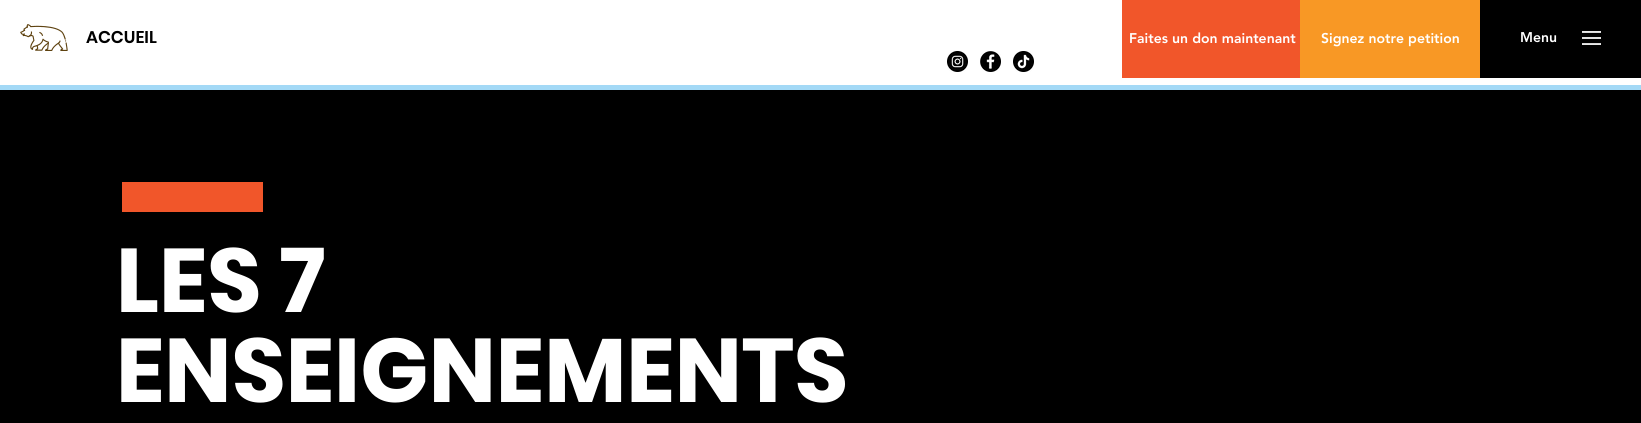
import math
import cairo

surface = cairo.ImageSurface(cairo.FORMAT_RGB24, 1641, 423)
c = cairo.Context(surface)
options = cairo.FontOptions()
options.set_hint_metrics(cairo.HINT_METRICS_OFF)
options.set_hint_style(cairo.HINT_STYLE_NONE)
c.set_font_options(options)
c.set_miter_limit(4)
def C(code):
 c.set_source_rgb(*(v / 255 for v in bytes.fromhex(code[-6:])))
def F(family, size, italic, bold):
 c.select_font_face(family, cairo.FONT_SLANT_ITALIC if italic else cairo.FONT_SLANT_NORMAL, cairo.FONT_WEIGHT_BOLD if bold else cairo.FONT_WEIGHT_NORMAL)
 c.set_font_size(size)
def T(x, y, s):
 c.move_to(x, y)
 c.show_text(s)
def R(x, y, w, h):
 c.rectangle(x, y, w, h)
 c.fill()
def I(path, x, y, w, h):
 c.save()
 c.set_source_surface(cairo.ImageSurface.create_from_png(path), x, y)
 c.rectangle(x, y, w, h)
 c.fill()
 c.restore()
C('ffffff')
c.paint()
I('1.png',20,24,48,27)
F('Poppins SemiBold',17,0,0)
C('000000')
T(86,43,'ACCUEIL')
C('f1562a')
R(1122,0,178,78)
F('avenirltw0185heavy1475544 Black',14,0,0)
C('ffffff')
T(1129,43,'Faites un don maintenant')
C('f89825')
R(1300,0,180,78)
C('ffffff')
T(1321,43,'Signez notre petition')
C('000000')
R(1480,0,161,78)
C('ffffff')
T(1520,42,'Menu')
I('2.png',1582,31,19,14)
I('3.png',947,51,21,21)
I('4.png',980,51,21,21)
I('5.png',1013,51,21,21)
C('a3d9f6')
R(0,85,1641,5)
C('000000')
R(0,90,1641,333)
C('f1562a')
R(122,182,141,30)
F('Poppins',90,0,1)
C('ffffff')
T(116,312,'LES 7')
T(116,402,'ENSEIGNEMENTS')
surface.write_to_png('o.png')
